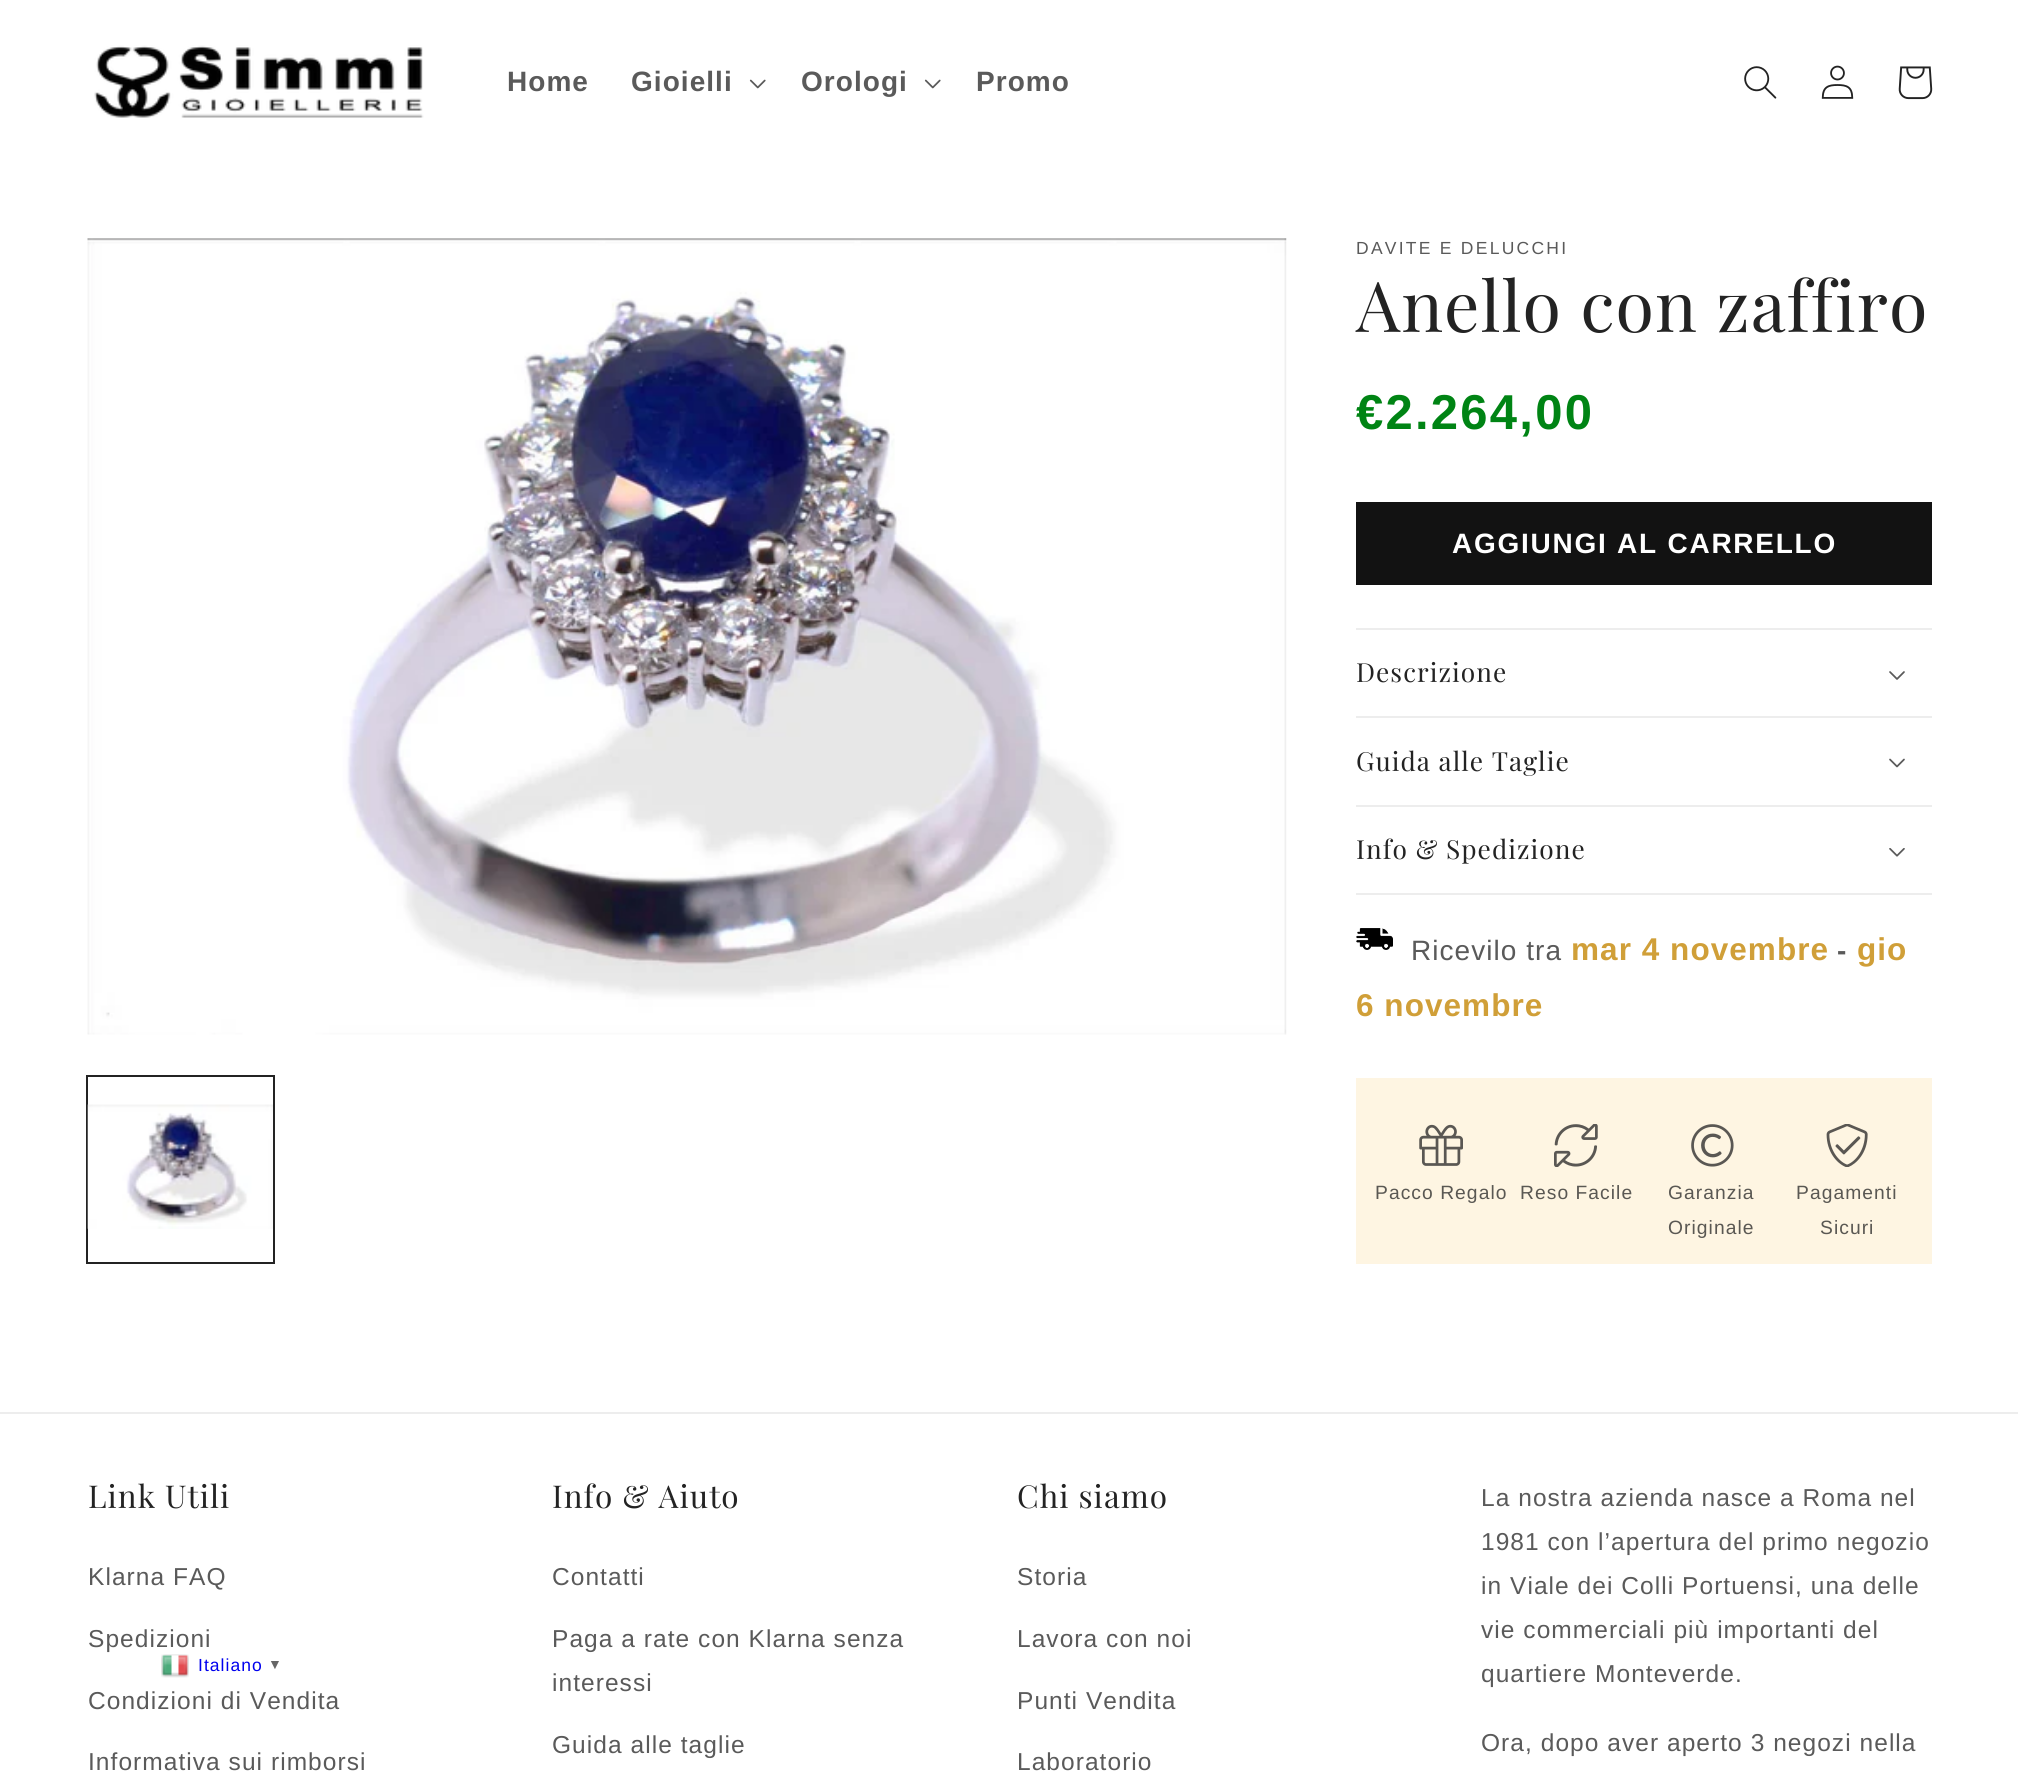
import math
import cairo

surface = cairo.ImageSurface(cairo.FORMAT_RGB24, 2018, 1779)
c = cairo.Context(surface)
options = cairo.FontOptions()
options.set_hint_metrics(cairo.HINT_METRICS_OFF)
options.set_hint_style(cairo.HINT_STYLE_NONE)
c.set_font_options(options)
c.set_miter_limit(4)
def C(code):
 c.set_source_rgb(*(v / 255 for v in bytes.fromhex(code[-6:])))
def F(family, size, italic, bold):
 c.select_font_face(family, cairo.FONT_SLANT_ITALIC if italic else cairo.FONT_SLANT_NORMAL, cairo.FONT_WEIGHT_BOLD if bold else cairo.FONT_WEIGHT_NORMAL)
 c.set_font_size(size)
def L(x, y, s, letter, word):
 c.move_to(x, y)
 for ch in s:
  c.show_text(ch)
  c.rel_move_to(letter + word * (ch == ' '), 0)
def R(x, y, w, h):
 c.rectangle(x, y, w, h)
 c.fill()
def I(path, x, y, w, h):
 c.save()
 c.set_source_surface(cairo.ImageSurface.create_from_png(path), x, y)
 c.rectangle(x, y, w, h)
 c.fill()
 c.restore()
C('ffffff')
c.paint()
I('1.png',94,45,330,73)
F('Liberation Sans',28,0,1)
C('5a5a5a')
L(507,91,'Home',1.05,0)
L(631,91,'Gioielli',1.05,0)
I('2.png',749,79,17,10)
L(801,91,'Orologi',1.05,0)
I('2.png',924,79,17,10)
L(976,91,'Promo',1.05,0)
I('3.png',1744,66,33,33)
I('4.png',1821,65,33,34)
I('5.png',1898,66,35,34)
I('6.png',87,238,1200,797)
c.rectangle(87,1076,187,187)
C('232323')
c.stroke()
I('7.png',87,1104,186,125)
F('Liberation Sans',17.5,0,0)
C('5a5a5a')
L(1356,254,'DAVITE E DELUCCHI',2.25,0)
F('Playfair Display',70,0,0)
C('232323')
L(1356,332,'Anello con zaffiro',1.05,0)
F('Liberation Sans',49,0,1)
C('008414')
L(1356,429,'€2.264,00',2.25,0)
C('121212')
R(1356,502,576,83)
F('Liberation Sans',28,0,1)
C('ffffff')
L(1452,553,'AGGIUNGI AL CARRELLO',1.75,0)
C('ededed')
R(1356,628,576,2)
R(1356,716,576,2)
F('Playfair Display',26.25,0,0)
C('232323')
L(1356,682,'Descrizione',1.05,0)
I('8.png',1889,671,16,9)
C('ededed')
R(1356,805,576,2)
C('232323')
L(1356,771,'Guida alle Taglie',1.05,0)
I('9.png',1889,758,16,10)
C('ededed')
R(1356,893,576,2)
C('232323')
L(1356,859,'Info & Spedizione',1.05,0)
I('10.png',1889,848,16,9)
I('11.png',1356,928,37,22)
F('Liberation Sans',28,0,0)
C('5a5a5a')
L(1411,960,'Ricevilo tra',1.05,0)
F('Liberation Sans',31.5,0,1)
C('d09f38')
L(1571,960,'mar 4 novembre',1.05,0)
F('Liberation Sans',28,0,1)
C('5a5a5a')
L(1837,960,'-',1.05,0)
F('Liberation Sans',31.5,0,1)
C('d09f38')
L(1857,960,'gio',1.05,0)
L(1356,1016,'6 novembre',1.05,0)
C('fef5e2')
R(1356,1078,576,186)
I('12.png',1419,1124,44,42)
F('Liberation Sans',19.25,0,0)
C('5a5853')
L(1375,1199,'Pacco Regalo',1.05,0)
I('13.png',1554,1124,44,43)
L(1520,1199,'Reso Facile',1.05,0)
I('14.png',1691,1124,43,43)
L(1668,1199,'Garanzia',1.05,0)
L(1668,1234,'Originale',1.05,0)
I('15.png',1826,1124,42,43)
L(1796,1199,'Pagamenti',1.05,0)
L(1820,1234,'Sicuri',1.05,0)
C('ededed')
R(0,1412,2018,2)
F('Playfair Display',31.5,0,0)
C('232323')
L(88,1508,'Link Utili',1.05,0)
F('Liberation Sans',24.5,0,0)
C('5a5a5a')
L(88,1585,'Klarna FAQ',1.05,0)
L(88,1647,'Spedizioni',1.05,0)
L(88,1709,'Condizioni di Vendita',1.05,0)
L(88,1770,'Informativa sui rimborsi',1.05,0)
F('Playfair Display',31.5,0,0)
C('232323')
L(552,1508,'Info & Aiuto',1.05,0)
F('Liberation Sans',24.5,0,0)
C('5a5a5a')
L(552,1585,'Contatti',1.05,0)
L(552,1647,'Paga a rate con Klarna senza',1.05,0)
L(552,1691,'interessi',1.05,0)
L(552,1753,'Guida alle taglie',1.05,0)
F('Playfair Display',31.5,0,0)
C('232323')
L(1017,1508,'Chi siamo',1.05,0)
F('Liberation Sans',24.5,0,0)
C('5a5a5a')
L(1017,1585,'Storia',1.05,0)
L(1017,1647,'Lavora con noi',1.05,0)
L(1017,1709,'Punti Vendita',1.05,0)
L(1017,1770,'Laboratorio',1.05,0)
L(1481,1506,'La nostra azienda nasce a Roma nel',1.05,0)
L(1481,1550,'1981 con l’apertura del primo negozio',1.05,0)
L(1481,1594,'in Viale dei Colli Portuensi, una delle',1.05,0)
L(1481,1638,'vie commerciali più importanti del',1.05,0)
L(1481,1682,'quartiere Monteverde.',1.05,0)
L(1481,1751,'Ora, dopo aver aperto 3 negozi nella',1.05,0)
I('16.png',161,1654,28,24)
F('Liberation Sans',17.5,0,0)
C('0000ee')
L(198,1671,'Italiano',1.05,0)
F('Liberation Sans',14,0,1)
C('666666')
L(268,1669,'▼',1.05,0)
surface.write_to_png('o.png')
